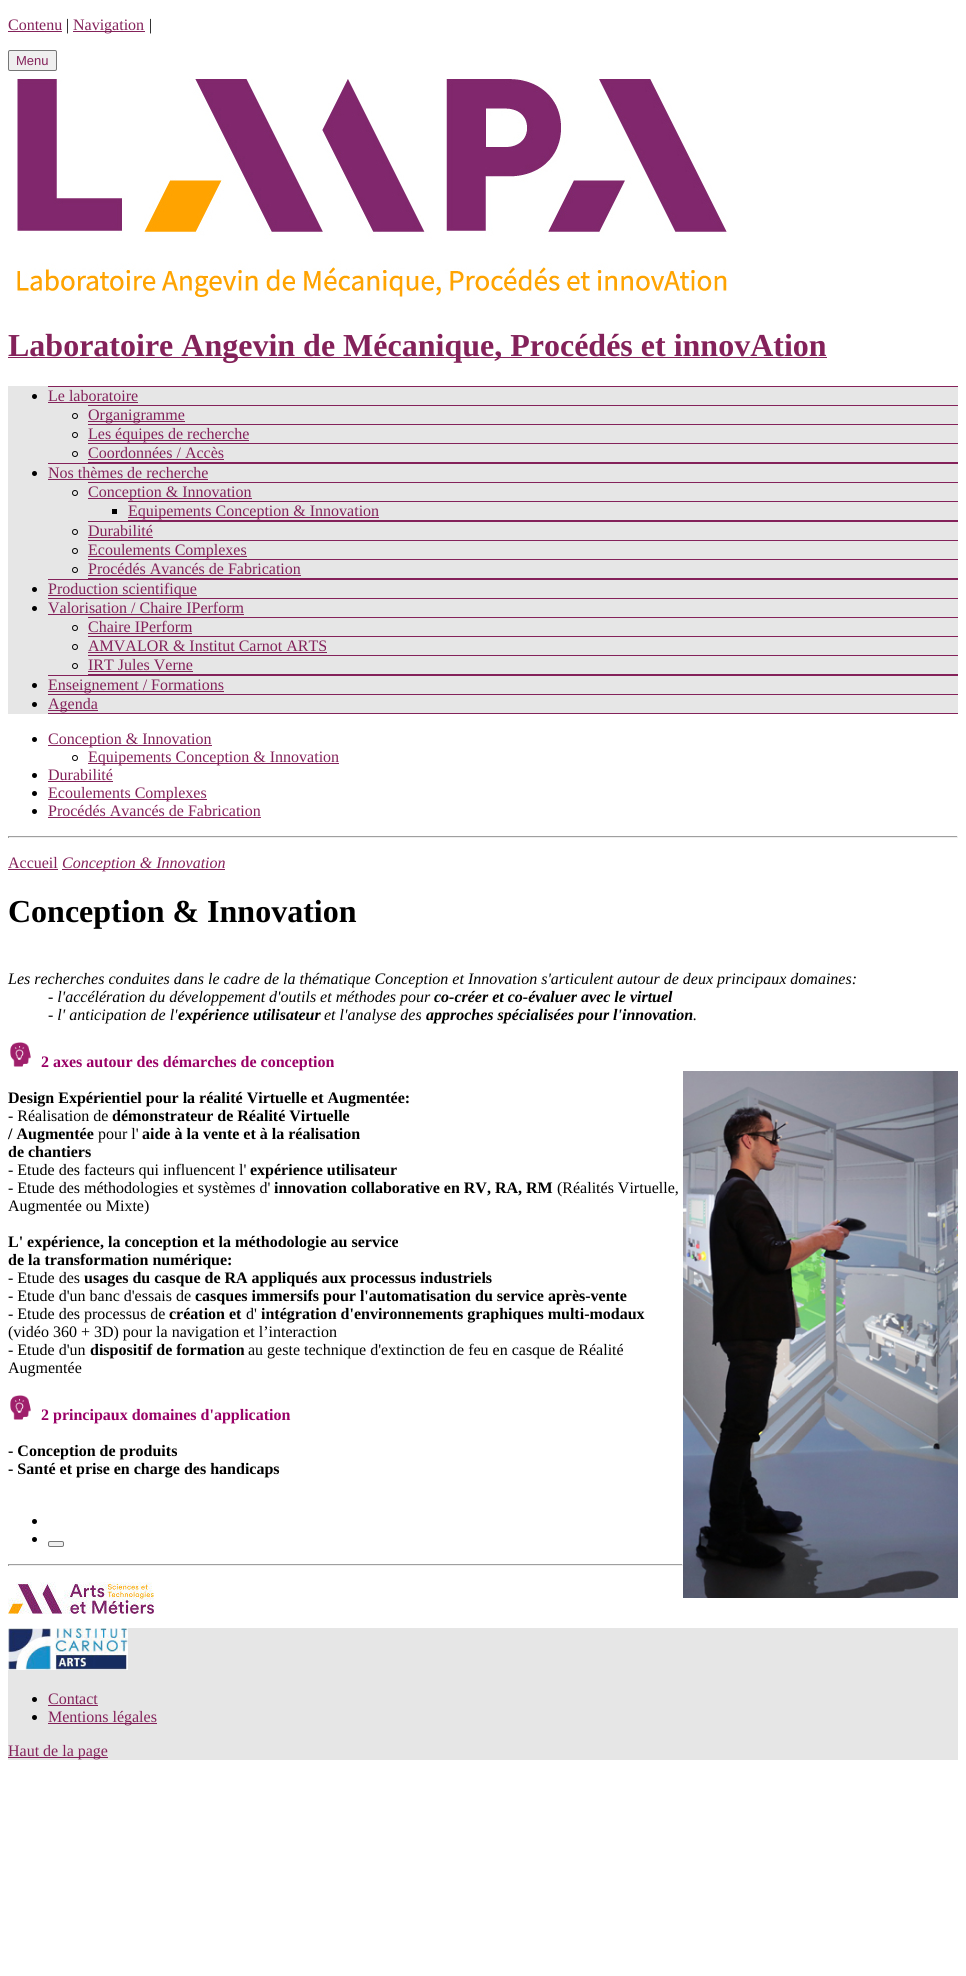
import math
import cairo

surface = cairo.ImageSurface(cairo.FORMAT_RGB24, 966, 1976)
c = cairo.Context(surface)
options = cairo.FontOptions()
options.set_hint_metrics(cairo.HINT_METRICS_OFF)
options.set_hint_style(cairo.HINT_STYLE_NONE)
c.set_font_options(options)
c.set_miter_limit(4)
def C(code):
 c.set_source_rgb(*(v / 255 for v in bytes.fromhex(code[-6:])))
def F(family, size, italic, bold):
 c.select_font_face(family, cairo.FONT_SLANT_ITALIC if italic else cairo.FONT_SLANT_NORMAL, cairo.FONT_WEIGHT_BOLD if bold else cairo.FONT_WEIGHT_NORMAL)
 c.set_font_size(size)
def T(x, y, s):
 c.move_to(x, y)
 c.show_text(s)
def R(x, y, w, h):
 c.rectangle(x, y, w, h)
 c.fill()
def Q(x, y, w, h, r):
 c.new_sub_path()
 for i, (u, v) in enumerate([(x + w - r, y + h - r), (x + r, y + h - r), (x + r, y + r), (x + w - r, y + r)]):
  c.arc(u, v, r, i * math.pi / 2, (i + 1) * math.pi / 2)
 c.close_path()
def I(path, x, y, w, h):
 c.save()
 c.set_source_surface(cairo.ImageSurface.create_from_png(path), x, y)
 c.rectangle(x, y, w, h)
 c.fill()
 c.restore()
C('ffffff')
c.paint()
F('Liberation Serif',16,0,0)
C('84225a')
T(8,30,'Contenu')
R(8,31,54,1)
C('000000')
T(66,30,'|')
C('84225a')
R(73,31,72,1)
T(73,30,'Navigation')
C('000000')
T(149,30,'|')
C('efefef')
Q(8.5,50.5,48,20,1.5)
c.fill_preserve()
C('767676')
c.set_line_width(1)
c.stroke()
F('Liberation Sans',13,0,0)
C('84225a')
T(16,65,'Menu')
I('1.png',17,79,711,221)
R(8,357,819,1)
F('Liberation Serif',32,0,1)
T(8,356,'Laboratoire Angevin de Mécanique, Procédés et innovAtion')
C('e6e6e6')
R(8,386,950,328)
C('84225a')
R(48,386,910,1)
R(48,463,910,1)
C('000000')
c.new_path()
c.arc(34.5,396.5,2.5,0,2 * math.pi)
c.fill()
F('Liberation Serif',16,0,0)
C('84225a')
T(48,401,'Le laboratoire')
R(48,402,90,1)
R(88,405,870,1)
R(88,424,870,1)
c.new_path()
c.arc(75,416,2.5,0,2 * math.pi)
C('000000')
c.stroke()
C('84225a')
R(88,421,97,1)
T(88,420,'Organigramme')
R(88,443,870,1)
c.new_path()
c.arc(75,435,2.5,0,2 * math.pi)
C('000000')
c.stroke()
C('84225a')
R(88,440,161,1)
T(88,439,'Les équipes de recherche')
R(88,462,870,1)
c.new_path()
c.arc(75,454,2.5,0,2 * math.pi)
C('000000')
c.stroke()
C('84225a')
T(88,458,'Coordonnées / Accès')
R(88,459,136,1)
R(48,579,910,1)
C('000000')
c.new_path()
c.arc(34.5,473.5,2.5,0,2 * math.pi)
c.fill()
C('84225a')
T(48,478,'Nos thèmes de recherche')
R(48,479,160,1)
R(88,482,870,1)
R(88,521,870,1)
c.new_path()
c.arc(75,493,2.5,0,2 * math.pi)
C('000000')
c.stroke()
C('84225a')
R(88,498,164,1)
T(88,497,'Conception & Innovation')
R(128,501,830,1)
R(128,520,830,1)
C('000000')
R(112,509,5,5)
C('84225a')
R(128,517,251,1)
T(128,516,'Equipements Conception & Innovation')
R(88,540,870,1)
c.new_path()
c.arc(75,532,2.5,0,2 * math.pi)
C('000000')
c.stroke()
C('84225a')
T(88,536,'Durabilité')
R(88,537,65,1)
R(88,559,870,1)
c.new_path()
c.arc(75,551,2.5,0,2 * math.pi)
C('000000')
c.stroke()
C('84225a')
R(88,556,159,1)
T(88,555,'Ecoulements Complexes')
R(88,578,870,1)
c.new_path()
c.arc(75,570,2.5,0,2 * math.pi)
C('000000')
c.stroke()
C('84225a')
T(88,574,'Procédés Avancés de Fabrication')
R(88,575,213,1)
R(48,598,910,1)
C('000000')
c.new_path()
c.arc(34.5,589.5,2.5,0,2 * math.pi)
c.fill()
C('84225a')
R(48,595,149,1)
T(48,594,'Production scientifique')
R(48,675,910,1)
C('000000')
c.new_path()
c.arc(34.5,608.5,2.5,0,2 * math.pi)
c.fill()
C('84225a')
T(48,613,'Valorisation / Chaire IPerform')
R(48,614,196,1)
R(88,617,870,1)
R(88,636,870,1)
c.new_path()
c.arc(75,628,2.5,0,2 * math.pi)
C('000000')
c.stroke()
C('84225a')
T(88,632,'Chaire IPerform')
R(88,633,104,1)
R(88,655,870,1)
c.new_path()
c.arc(75,647,2.5,0,2 * math.pi)
C('000000')
c.stroke()
C('84225a')
T(88,651,'AMVALOR & Institut Carnot ARTS')
R(88,652,239,1)
R(88,674,870,1)
c.new_path()
c.arc(75,666,2.5,0,2 * math.pi)
C('000000')
c.stroke()
C('84225a')
T(88,670,'IRT Jules Verne')
R(88,671,105,1)
R(48,694,910,1)
C('000000')
c.new_path()
c.arc(34.5,685.5,2.5,0,2 * math.pi)
c.fill()
C('84225a')
R(48,691,176,1)
T(48,690,'Enseignement / Formations')
R(48,713,910,1)
C('000000')
c.new_path()
c.arc(34.5,704.5,2.5,0,2 * math.pi)
c.fill()
C('84225a')
R(48,710,50,1)
T(48,709,'Agenda')
C('000000')
c.new_path()
c.arc(34.5,739.5,2.5,0,2 * math.pi)
c.fill()
C('84225a')
R(48,745,164,1)
T(48,744,'Conception & Innovation')
c.new_path()
c.arc(75,758,2.5,0,2 * math.pi)
C('000000')
c.stroke()
C('84225a')
R(88,763,251,1)
T(88,762,'Equipements Conception & Innovation')
C('000000')
c.new_path()
c.arc(34.5,775.5,2.5,0,2 * math.pi)
c.fill()
C('84225a')
T(48,780,'Durabilité')
R(48,781,65,1)
C('000000')
c.new_path()
c.arc(34.5,793.5,2.5,0,2 * math.pi)
c.fill()
C('84225a')
R(48,799,159,1)
T(48,798,'Ecoulements Complexes')
C('000000')
c.new_path()
c.arc(34.5,811.5,2.5,0,2 * math.pi)
c.fill()
C('84225a')
T(48,816,'Procédés Avancés de Fabrication')
R(48,817,213,1)
C('9f9f9f')
R(8,836,950,1)
C('eeeeee')
R(957,836,1,2)
R(8,837,950,1)
C('9f9f9f')
R(8,836,1,2)
C('84225a')
T(8,868,'Accueil')
R(8,869,50,1)
R(62,869,163,1)
F('Liberation Serif',16,1,0)
T(62,868,'Conception & Innovation')
F('Liberation Serif',32,0,1)
C('000000')
T(8,922,'Conception & Innovation')
F('Liberation Serif',16,1,0)
T(8,984,'Les recherches conduites dans le cadre de la thématique Conception et Innovation s\'articulent autour de deux principaux domaines:')
T(48,1002,'- l\'accélération du développement d\'outils et méthodes pour')
F('Liberation Serif',16,1,1)
T(434,1002,'co-créer et co-évaluer avec le virtuel')
F('Liberation Serif',16,1,0)
T(48,1020,'- l\' anticipation de l\'')
F('Liberation Serif',16,1,1)
T(178,1020,'expérience utilisateur')
F('Liberation Serif',16,1,0)
T(324,1020,'et l\'analyse des')
F('Liberation Serif',16,1,1)
T(426,1020,'approches spécialisées pour l\'innovation')
F('Liberation Serif',16,1,0)
T(693,1020,'.')
I('2.png',10,1042,21,25)
F('Liberation Serif',16,0,1)
C('990066')
T(41,1067,'2 axes autour des démarches de conception')
C('000000')
T(8,1103,'Design Expérientiel pour la réalité Virtuelle et Augmentée:')
I('3.png',683,1071,275,527)
F('Liberation Serif',16,0,0)
T(8,1121,'- Réalisation de')
F('Liberation Serif',16,0,1)
T(112,1121,'démonstrateur de Réalité Virtuelle')
T(8,1139,'/ Augmentée')
F('Liberation Serif',16,0,0)
T(98,1139,'pour l\'')
F('Liberation Serif',16,0,1)
T(142,1139,'aide à la vente et à la réalisation')
T(8,1157,'de chantiers')
F('Liberation Serif',16,0,0)
T(8,1175,'- Etude des facteurs qui influencent l\'')
F('Liberation Serif',16,0,1)
T(250,1175,'expérience utilisateur')
F('Liberation Serif',16,0,0)
T(8,1193,'- Etude des méthodologies et systèmes d\'')
F('Liberation Serif',16,0,1)
T(274,1193,'innovation collaborative en RV, RA, RM')
F('Liberation Serif',16,0,0)
T(557,1193,'(Réalités Virtuelle,')
T(8,1211,'Augmentée ou Mixte)')
F('Liberation Serif',16,0,1)
T(8,1247,'L\' expérience, la conception et la méthodologie au service')
T(8,1265,'de la transformation numérique:')
F('Liberation Serif',16,0,0)
T(8,1283,'- Etude des')
F('Liberation Serif',16,0,1)
T(84,1283,'usages du casque de RA appliqués aux processus industriels')
F('Liberation Serif',16,0,0)
T(8,1301,'- Etude d\'un banc d\'essais de')
F('Liberation Serif',16,0,1)
T(195,1301,'casques immersifs pour l\'automatisation du service après-vente')
F('Liberation Serif',16,0,0)
T(8,1319,'- Etude des processus de')
F('Liberation Serif',16,0,1)
T(169,1319,'création et')
F('Liberation Serif',16,0,0)
T(246,1319,'d\'')
F('Liberation Serif',16,0,1)
T(261,1319,'intégration d\'environnements graphiques multi-modaux')
F('Liberation Serif',16,0,0)
T(8,1337,'(vidéo 360 + 3D) pour la navigation et l’interaction')
T(8,1355,'- Etude d\'un')
F('Liberation Serif',16,0,1)
T(90,1355,'dispositif de formation')
F('Liberation Serif',16,0,0)
T(248,1355,'au geste technique d\'extinction de feu en casque de Réalité')
T(8,1373,'Augmentée')
I('2.png',10,1395,21,25)
F('Liberation Serif',16,0,1)
C('990066')
T(41,1420,'2 principaux domaines d\'application')
C('000000')
T(8,1456,'- Conception de produits')
T(8,1474,'- Santé et prise en charge des handicaps')
c.new_path()
c.arc(34.5,1521.5,2.5,0,2 * math.pi)
c.fill()
c.arc(34.5,1539.5,2.5,0,2 * math.pi)
c.fill()
C('efefef')
Q(48.5,1541.5,15,5,1.5)
c.fill_preserve()
C('767676')
c.stroke()
C('9f9f9f')
R(8,1564,675,1)
C('eeeeee')
R(682,1564,1,2)
R(8,1565,675,1)
C('9f9f9f')
R(8,1564,1,2)
I('4.png',8,1582,146,32)
C('e6e6e6')
R(8,1628,950,132)
I('5.png',8,1628,120,42)
C('000000')
c.arc(34.5,1699.5,2.5,0,2 * math.pi)
c.fill()
F('Liberation Serif',16,0,0)
C('84225a')
T(48,1704,'Contact')
R(48,1705,50,1)
C('000000')
c.new_path()
c.arc(34.5,1717.5,2.5,0,2 * math.pi)
c.fill()
C('84225a')
R(48,1723,109,1)
T(48,1722,'Mentions légales')
R(8,1757,100,1)
T(8,1756,'Haut de la page')
surface.write_to_png('o.png')
